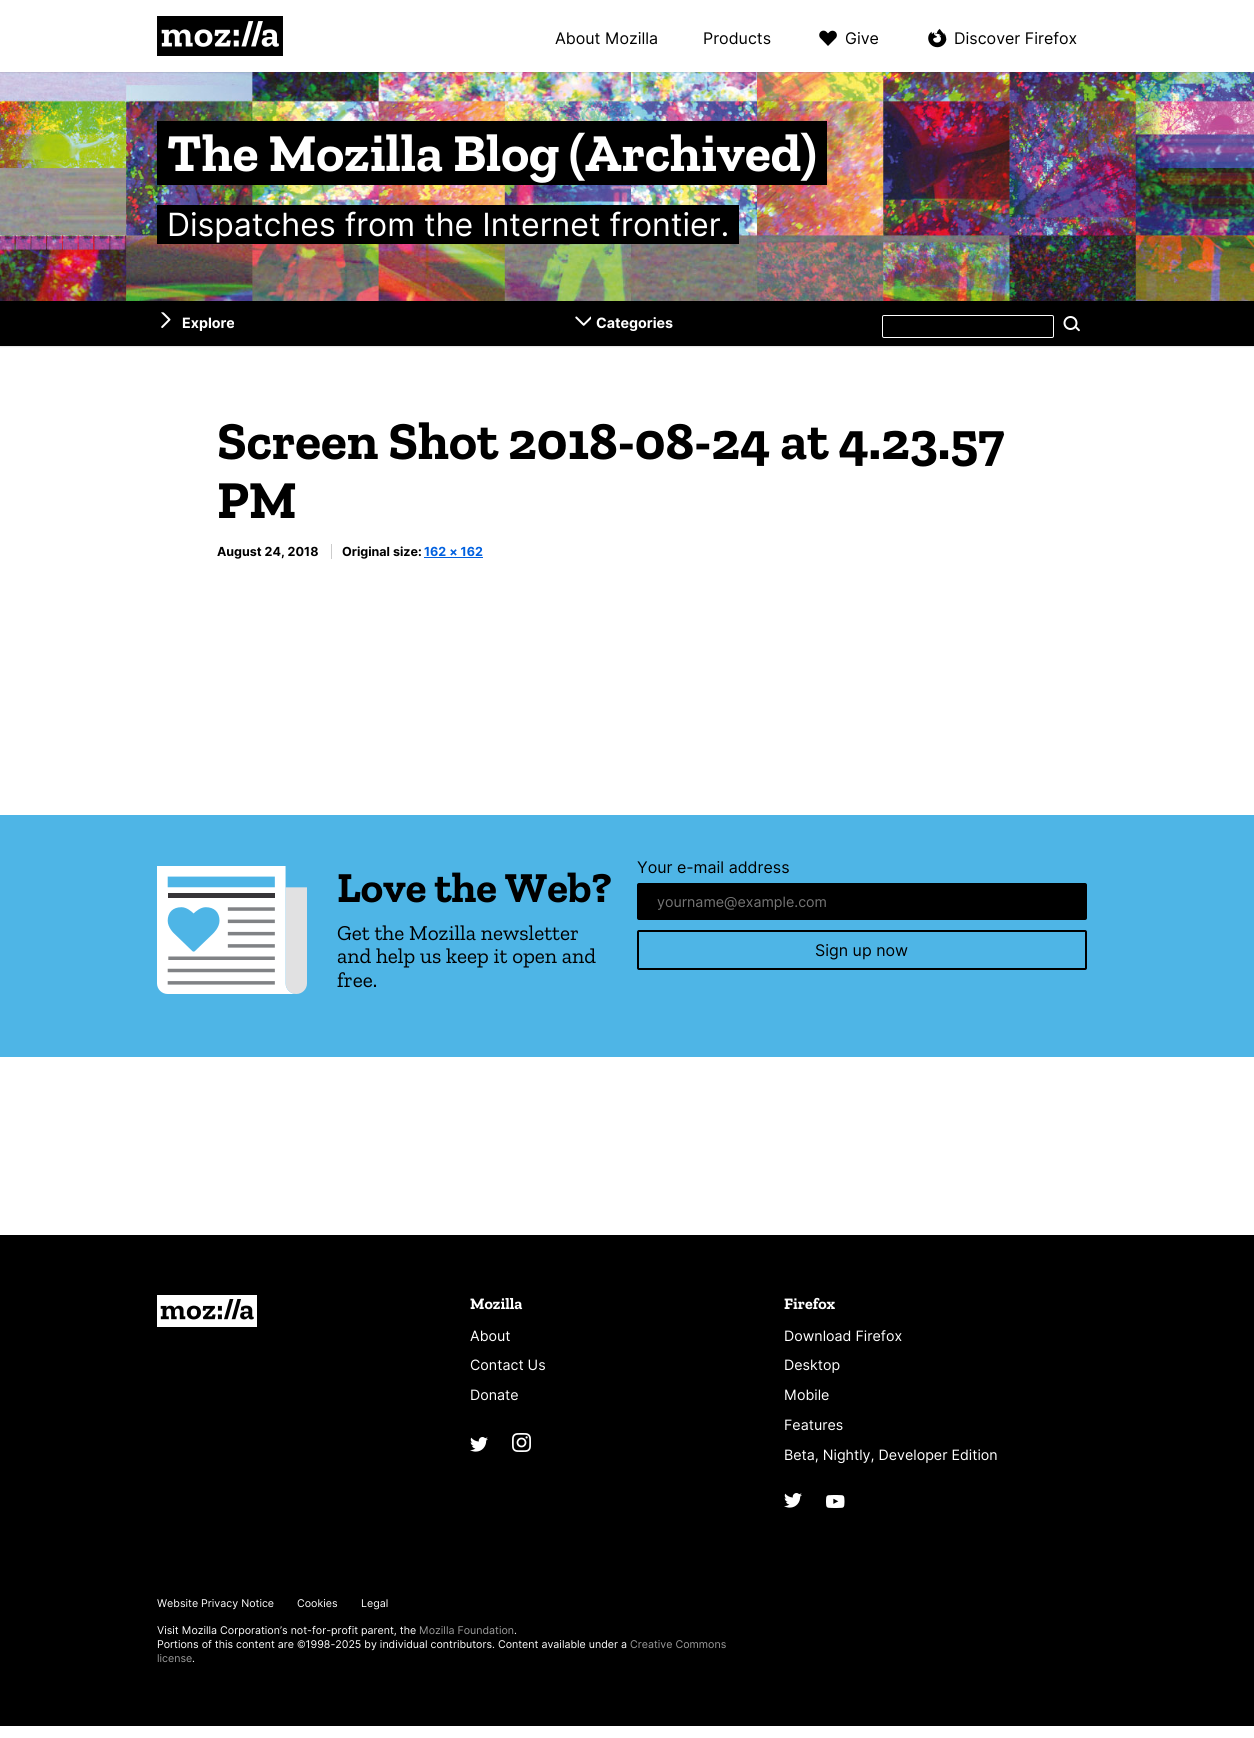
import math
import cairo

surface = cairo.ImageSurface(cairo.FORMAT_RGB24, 1254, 1738)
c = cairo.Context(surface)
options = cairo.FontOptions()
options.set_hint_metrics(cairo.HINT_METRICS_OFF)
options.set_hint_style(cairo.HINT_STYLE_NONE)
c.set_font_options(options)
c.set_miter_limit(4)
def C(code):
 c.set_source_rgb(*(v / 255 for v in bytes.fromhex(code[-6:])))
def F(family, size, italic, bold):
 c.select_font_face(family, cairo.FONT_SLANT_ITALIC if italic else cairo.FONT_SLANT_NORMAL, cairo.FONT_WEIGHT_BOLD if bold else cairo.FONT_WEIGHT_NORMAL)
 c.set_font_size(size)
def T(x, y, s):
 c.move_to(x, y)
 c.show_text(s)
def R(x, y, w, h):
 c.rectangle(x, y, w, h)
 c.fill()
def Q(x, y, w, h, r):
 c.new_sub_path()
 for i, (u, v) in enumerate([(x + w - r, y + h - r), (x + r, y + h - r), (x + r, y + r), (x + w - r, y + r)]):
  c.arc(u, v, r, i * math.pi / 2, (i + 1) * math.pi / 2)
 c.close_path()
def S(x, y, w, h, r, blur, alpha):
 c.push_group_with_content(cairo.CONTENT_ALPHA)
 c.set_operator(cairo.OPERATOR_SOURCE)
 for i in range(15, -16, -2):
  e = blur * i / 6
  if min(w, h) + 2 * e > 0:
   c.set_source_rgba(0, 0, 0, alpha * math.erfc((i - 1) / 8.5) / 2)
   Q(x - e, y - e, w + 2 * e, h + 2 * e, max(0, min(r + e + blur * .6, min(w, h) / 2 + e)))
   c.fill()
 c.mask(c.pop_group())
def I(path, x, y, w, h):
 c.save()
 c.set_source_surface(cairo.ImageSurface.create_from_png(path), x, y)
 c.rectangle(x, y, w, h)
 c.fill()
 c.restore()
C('ffffff')
c.paint()
I('4.png',0,72,1254,229)
C('000000')
S(0,1,1254,72,0,.5,.1)
C('ffffff')
R(0,0,1254,72)
I('1.png',157,16,126,40)
F('Inter',16,0,0)
C('000000')
T(555,44,'About Mozilla')
T(703,44,'Products')
I('2.png',819,30,18,16)
T(845,44,'Give')
I('3.png',928,28,19,20)
T(954,44,'Discover Firefox')
R(157,121,670,64)
F('Zilla Slab',53.3,0,1)
C('ffffff')
T(167,171,'The Mozilla Blog (Archived)')
C('000000')
R(157,205,582,39)
F('Inter',32,0,0)
C('ffffff')
T(167,236,'Dispatches from the Internet frontier.')
C('000000')
S(0,302,1254,45,0,.5,.1)
C('000000')
R(0,301,1254,45)
I('5.png',161,312,10,16)
F('Inter',14.25,0,1)
C('ffffff')
T(182,328,'Explore')
I('6.png',575,316,16,10)
T(596,328,'Categories')
Q(882.5,315.5,171,22,1.5)
c.set_line_width(1)
c.stroke()
I('7.png',1063,316,17,16)
F('Zilla Slab',53.3,0,1)
C('000000')
T(217,459,'Screen Shot 2018-08-24 at 4.23.57')
T(217,518,'PM')
F('Inter',12.5,0,1)
T(217,556,'August 24, 2018')
T(342,556,'Original size:')
C('cccccc')
R(331,544,1,15)
C('0060df')
T(424,556,'162 × 162')
R(424,557,59,1)
C('4eb5e6')
R(0,815,1254,242)
I('8.png',157,866,150,128)
F('Zilla Slab',42.75,0,1)
C('000000')
T(337,902,'Love the Web?')
F('Zilla Slab',21.25,0,0)
T(337,940,'Get the Mozilla newsletter')
T(337,963,'and help us keep it open and')
T(337,987,'free.')
F('Inter',16,0,0)
T(637,873,'Your e-mail address')
Q(637,883,450,37,2)
c.fill()
F('Inter',14.25,0,0)
C('757575')
T(657,907,'yourname@example.com')
Q(638,931,448,38,1)
C('000000')
c.set_line_width(2)
c.stroke()
F('Inter',16,0,0)
T(815,956,'Sign up now')
R(0,1235,1254,491)
I('9.png',157,1295,100,32)
F('Zilla Slab',16,0,1)
C('ffffff')
T(470,1309,'Mozilla')
F('Inter',14.25,0,0)
T(470,1341,'About')
T(470,1370,'Contact Us')
T(470,1400,'Donate')
I('10.png',470,1437,18,15)
I('11.png',512,1433,19,19)
F('Zilla Slab',16,0,1)
T(784,1309,'Firefox')
F('Inter',14.25,0,0)
T(784,1341,'Download Firefox')
T(784,1370,'Desktop')
T(784,1400,'Mobile')
T(784,1430,'Features')
T(784,1460,'Beta, Nightly, Developer Edition')
I('10.png',784,1493,18,15)
I('12.png',826,1495,19,13)
F('Inter',10.65,0,0)
T(157,1607,'Website Privacy Notice')
T(297,1607,'Cookies')
T(361,1607,'Legal')
T(157,1634,'Visit Mozilla Corporation’s not-for-profit parent, the')
C('9b9b9b')
T(419,1634,'Mozilla Foundation')
C('ffffff')
T(514,1634,'.')
T(157,1648,'Portions of this content are ©1998-2025 by individual contributors. Content available under a')
C('9b9b9b')
T(630,1648,'Creative Commons')
T(157,1662,'license')
C('ffffff')
T(192,1662,'.')
surface.write_to_png('o.png')
